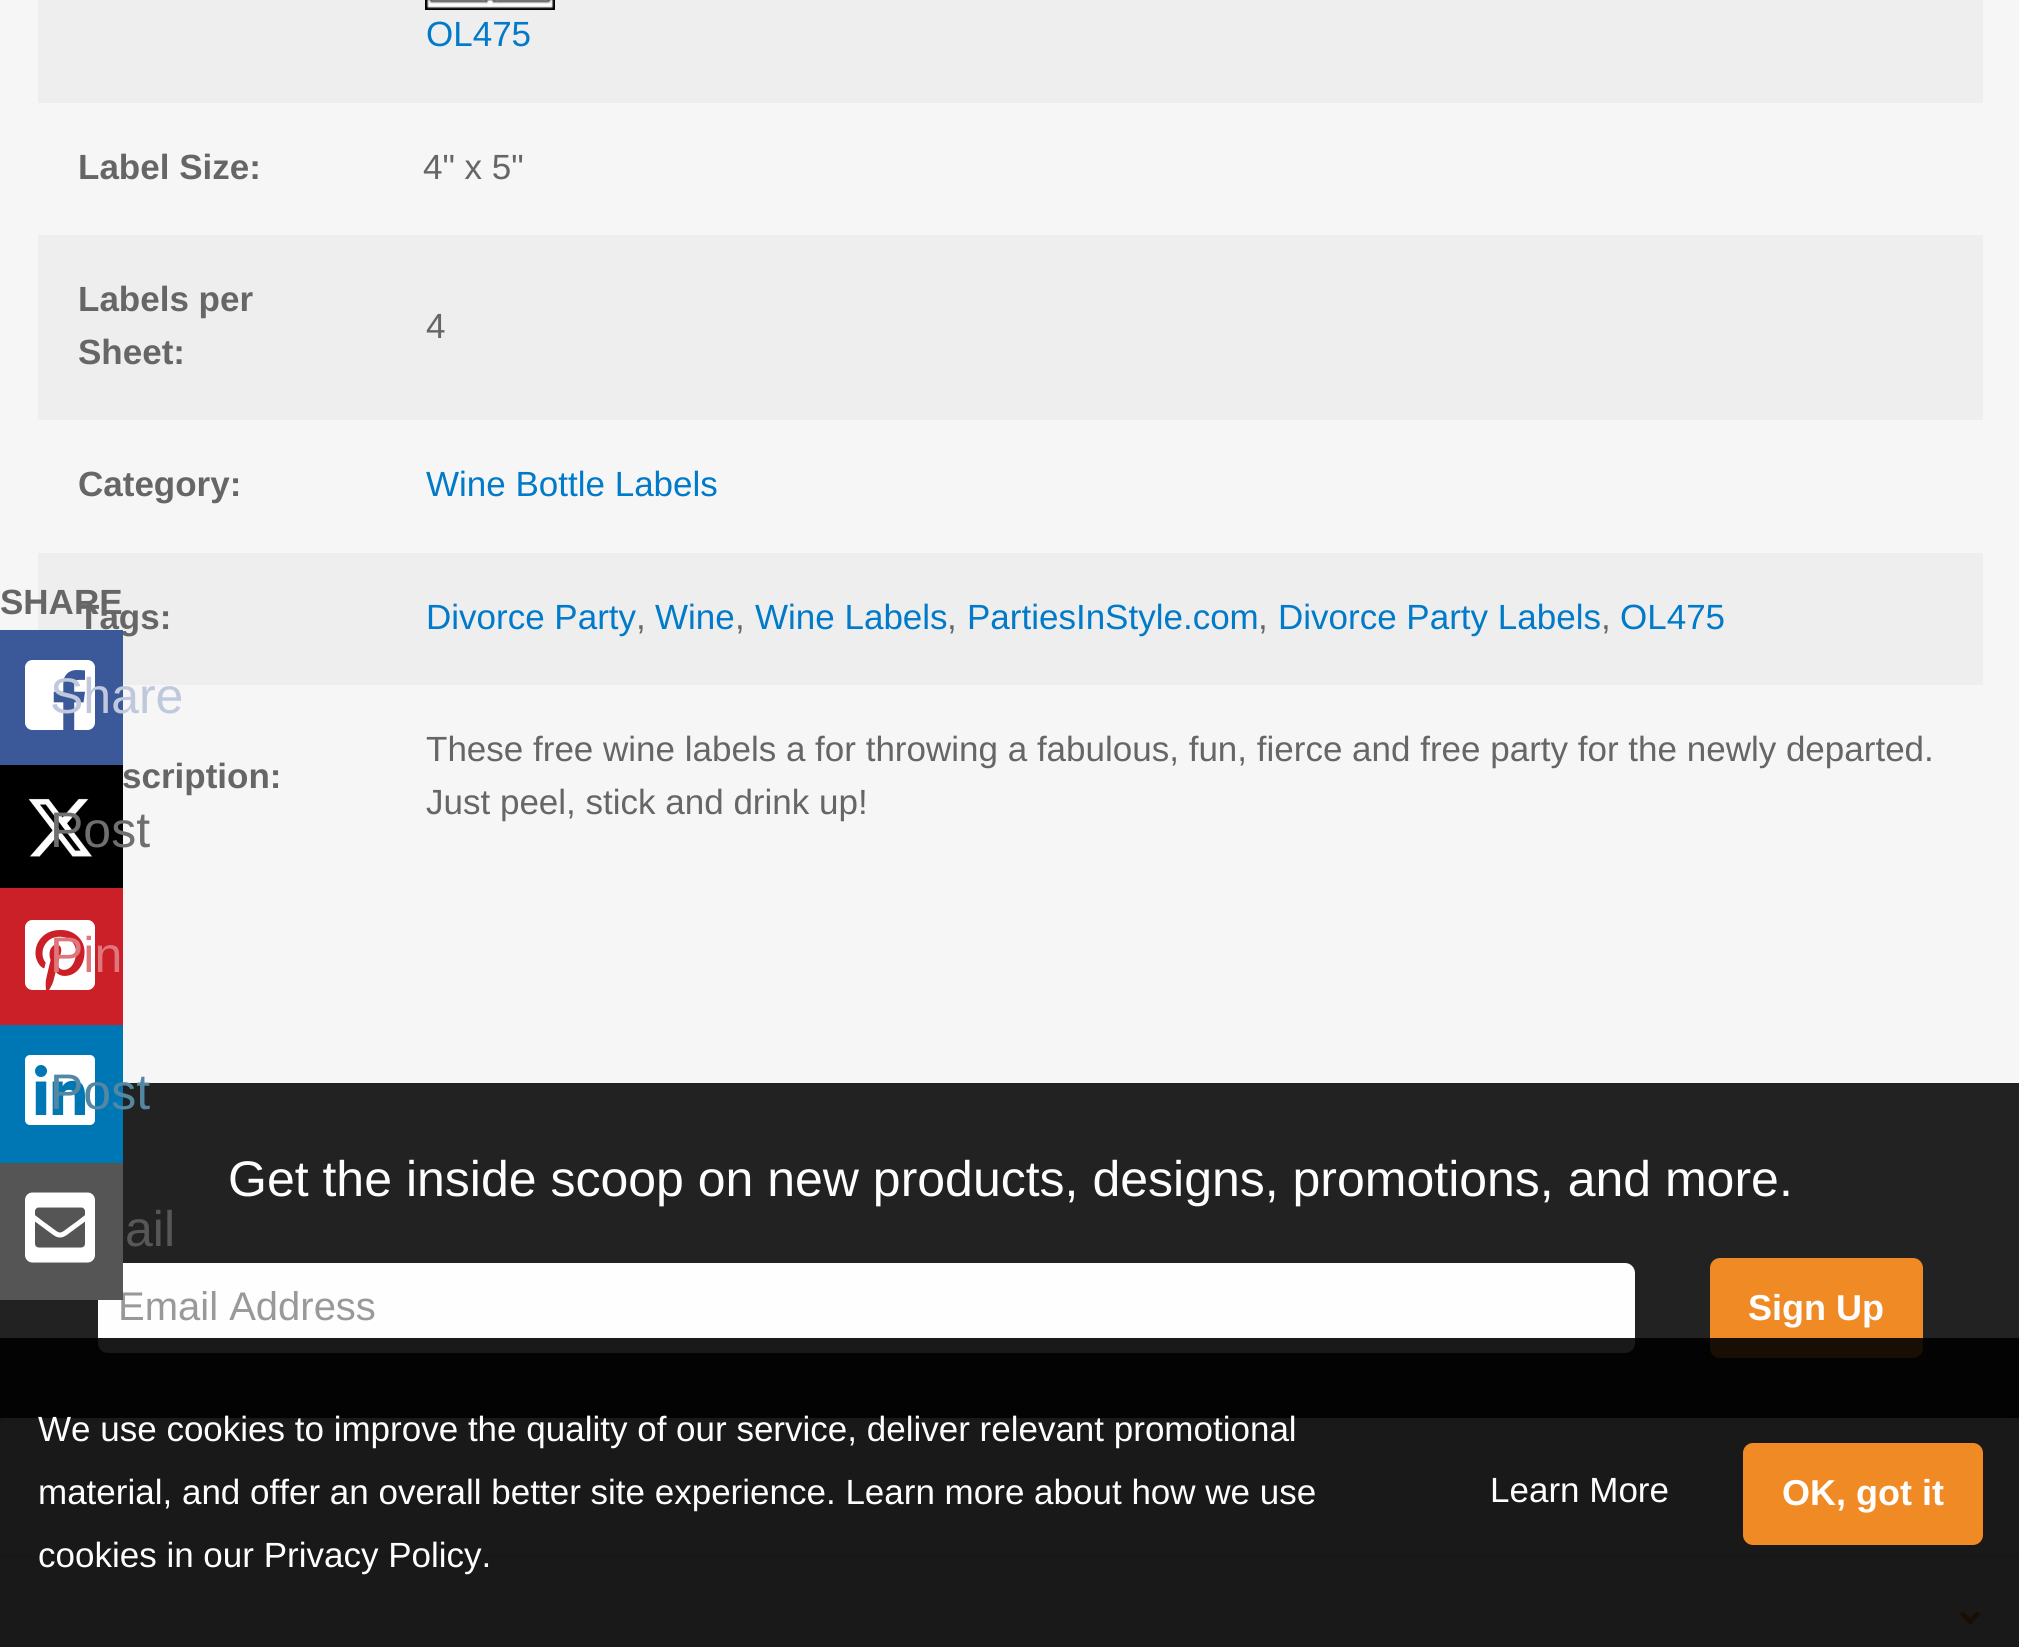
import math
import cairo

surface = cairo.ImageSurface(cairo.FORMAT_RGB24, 2019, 1647)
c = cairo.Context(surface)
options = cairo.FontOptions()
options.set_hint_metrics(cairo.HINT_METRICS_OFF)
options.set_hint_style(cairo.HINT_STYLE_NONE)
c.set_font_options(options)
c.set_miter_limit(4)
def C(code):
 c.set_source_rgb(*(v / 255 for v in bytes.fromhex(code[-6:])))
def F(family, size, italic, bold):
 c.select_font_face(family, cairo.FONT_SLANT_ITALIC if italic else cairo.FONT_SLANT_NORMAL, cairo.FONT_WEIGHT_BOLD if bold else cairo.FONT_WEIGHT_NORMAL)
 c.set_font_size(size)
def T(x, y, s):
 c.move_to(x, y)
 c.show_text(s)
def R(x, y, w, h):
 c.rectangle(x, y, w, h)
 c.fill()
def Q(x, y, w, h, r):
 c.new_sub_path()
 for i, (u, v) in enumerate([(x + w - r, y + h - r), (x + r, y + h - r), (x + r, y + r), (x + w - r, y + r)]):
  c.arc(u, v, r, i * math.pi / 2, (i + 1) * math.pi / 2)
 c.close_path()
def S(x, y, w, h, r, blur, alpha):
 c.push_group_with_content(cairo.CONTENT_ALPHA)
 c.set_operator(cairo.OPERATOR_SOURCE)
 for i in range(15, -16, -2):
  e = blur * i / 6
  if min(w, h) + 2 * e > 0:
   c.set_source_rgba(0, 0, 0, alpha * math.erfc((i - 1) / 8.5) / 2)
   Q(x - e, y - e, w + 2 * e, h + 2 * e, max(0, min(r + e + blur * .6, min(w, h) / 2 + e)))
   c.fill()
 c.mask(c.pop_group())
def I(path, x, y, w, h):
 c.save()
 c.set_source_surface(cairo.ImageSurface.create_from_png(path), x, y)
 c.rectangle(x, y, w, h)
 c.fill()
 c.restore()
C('f6f6f6')
c.paint()
C('eeeeee')
R(38,0,1945,103)
I('1.png',425,0,130,10)
F('Liberation Sans',35,0,0)
C('007ac9')
T(426,46,'OL475')
F('Liberation Sans',35,0,1)
C('666666')
T(78,179,'Label Size:')
F('Liberation Sans',35,0,0)
T(423,179,'4" x 5"')
C('eeeeee')
R(38,235,1945,185)
F('Liberation Sans',35,0,1)
C('666666')
T(78,311,'Labels per')
T(78,364,'Sheet:')
F('Liberation Sans',35,0,0)
T(426,338,'4')
F('Liberation Sans',35,0,1)
T(78,496,'Category:')
F('Liberation Sans',35,0,0)
C('007ac9')
T(426,496,'Wine Bottle Labels')
C('eeeeee')
R(38,553,1945,132)
F('Liberation Sans',35,0,1)
C('666666')
T(78,629,'Tags:')
F('Liberation Sans',35,0,0)
C('007ac9')
T(426,629,'Divorce Party')
C('666666')
T(636,629,',')
C('007ac9')
T(655,629,'Wine')
C('666666')
T(735,629,',')
C('007ac9')
T(755,629,'Wine Labels')
C('666666')
T(947,629,',')
C('007ac9')
T(967,629,'PartiesInStyle.com')
C('666666')
T(1258,629,',')
C('007ac9')
T(1278,629,'Divorce Party Labels')
C('666666')
T(1601,629,',')
C('007ac9')
T(1620,629,'OL475')
F('Liberation Sans',35,0,1)
C('666666')
T(122,788,'scription:')
F('Liberation Sans',35,0,0)
T(426,761,'These free wine labels a for throwing a fabulous, fun, fierce and free party for the newly departed.')
T(426,814,'Just peel, stick and drink up!')
F('Liberation Sans',35,0,1)
T(0,614,'SHARE')
C('3b5998')
R(0,630,123,135)
I('2.png',25,660,70,70)
F('Liberation Sans',50,0,0)
C('bfc8dc')
T(50,713,'Share')
C('000000')
R(0,765,123,123)
I('3.png',28,798,65,59)
C('6f6f6f')
T(50,847,'Post')
C('cb2027')
R(0,888,123,137)
I('4.png',25,920,70,70)
C('df767b')
T(50,972,'Pin')
C('222222')
R(0,1083,2019,335)
C('0077b5')
R(0,1025,123,138)
I('5.png',25,1055,70,70)
C('5488a2')
T(50,1109,'Post')
C('fefefe')
Q(98,1263,1537,90,10)
c.fill()
F('Liberation Sans',40,0,0)
C('999999')
T(118,1320,'Email Address')
C('555555')
R(0,1163,123,137)
I('6.png',25,1192,70,71)
F('Liberation Sans',50,0,0)
C('575757')
T(125,1246,'ail')
C('fefefe')
T(228,1196,'Get the inside scoop on new products, designs, promotions, and more.')
C('f08a24')
Q(1710,1258,213,100,10)
c.fill()
F('Liberation Sans',36,0,1)
C('fefefe')
T(1748,1320,'Sign Up')
C('000000')
S(0,1420,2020,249,10,4,.2)
C('fefefe')
Q(0,1418,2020,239,10)
c.fill()
C('eeeeee')
R(0,1555,2019,3)
I('7.png',1960,1611,20,14)
c.set_source_rgba(0,0,0,0.9)
R(0,1338,2019,309)
F('Liberation Sans',35,0,0)
C('fefefe')
T(38,1441,'We use cookies to improve the quality of our service, deliver relevant promotional')
T(38,1504,'material, and offer an overall better site experience. Learn more about how we use')
T(38,1567,'cookies in our Privacy Policy.')
T(1490,1502,'Learn More')
C('f08a24')
Q(1743,1443,240,102,10)
c.fill()
F('Liberation Sans',36,0,1)
C('fefefe')
T(1782,1505,'OK, got it')
surface.write_to_png('o.png')
